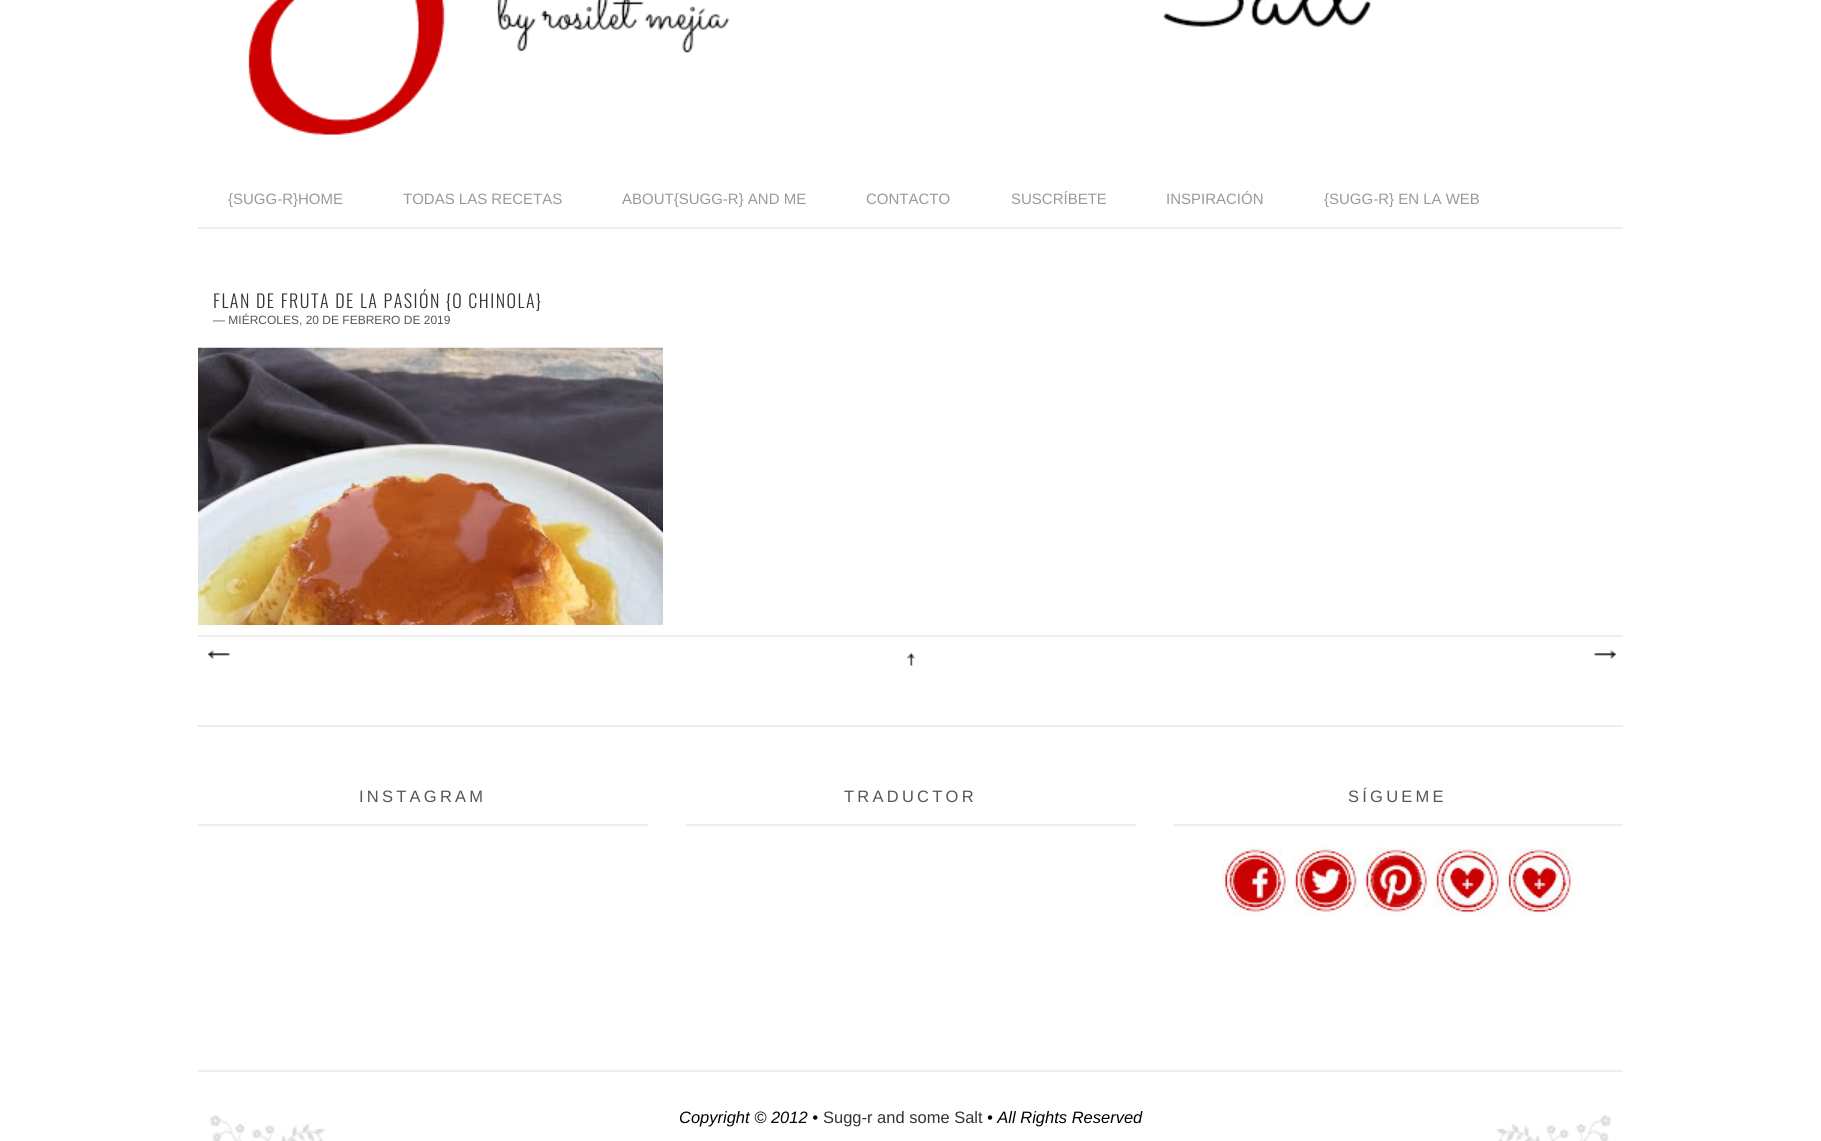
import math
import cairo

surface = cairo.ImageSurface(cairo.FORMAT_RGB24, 1821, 1141)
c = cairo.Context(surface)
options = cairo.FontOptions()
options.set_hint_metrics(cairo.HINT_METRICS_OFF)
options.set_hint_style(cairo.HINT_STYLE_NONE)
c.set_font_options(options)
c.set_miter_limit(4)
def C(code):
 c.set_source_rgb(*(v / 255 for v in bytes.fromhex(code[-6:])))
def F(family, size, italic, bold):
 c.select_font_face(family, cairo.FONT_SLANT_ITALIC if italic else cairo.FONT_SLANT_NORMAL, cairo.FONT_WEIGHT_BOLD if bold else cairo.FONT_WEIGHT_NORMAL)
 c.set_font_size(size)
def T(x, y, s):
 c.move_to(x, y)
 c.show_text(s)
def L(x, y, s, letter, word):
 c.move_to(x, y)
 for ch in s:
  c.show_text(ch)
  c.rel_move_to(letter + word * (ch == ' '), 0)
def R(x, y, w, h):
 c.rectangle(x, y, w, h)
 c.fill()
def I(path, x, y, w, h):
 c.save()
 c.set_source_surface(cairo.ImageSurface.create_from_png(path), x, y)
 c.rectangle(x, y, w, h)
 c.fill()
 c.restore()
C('ffffff')
c.paint()
I('1.png',248,0,1124,135)
C('eeeeee')
R(198,227,1425,2)
F('Liberation Sans',15,0,0)
C('999999')
T(228,204,'{SUGG-R}HOME')
T(403,204,'TODAS LAS RECETAS')
T(622,204,'ABOUT{SUGG-R} AND ME')
T(866,204,'CONTACTO')
T(1011,204,'SUSCRÍBETE')
T(1166,204,'INSPIRACIÓN')
T(1324,204,'{SUGG-R} EN LA WEB')
F('Oswald Light',18,0,0)
C('333333')
L(213,308,'FLAN DE FRUTA DE LA PASIÓN {O CHINOLA}',1.5,0)
F('Liberation Sans',12,0,0)
C('555555')
T(213,324,'— MIÉRCOLES, 20 DE FEBRERO DE 2019')
I('2.png',198,347,465,278)
C('eeeeee')
R(198,635,1425,2)
I('3.png',208,650,22,9)
I('4.png',208,650,22,9)
I('5.png',907,653,9,13)
I('6.png',1594,650,22,9)
I('7.png',1594,650,22,9)
R(198,725,1425,2)
R(198,824,450,2)
F('Liberation Sans',16.5,0,0)
C('555555')
L(359,802,'INSTAGRAM',3.25,0)
C('eeeeee')
R(686,824,450,2)
C('555555')
L(844,802,'TRADUCTOR',3.25,0)
C('eeeeee')
R(1173,824,450,2)
C('555555')
L(1348,802,'SÍGUEME',3.25,0)
I('8.png',1222,847,67,68)
I('9.png',1293,847,66,68)
I('10.png',1363,847,67,68)
I('11.png',1434,847,68,68)
I('12.png',1506,847,68,68)
I('13.png',210,1115,1401,26)
C('eeeeee')
R(198,1070,1425,2)
F('Liberation Sans',16.5,1,0)
C('000000')
T(679,1123,'Copyright © 2012 •')
F('Liberation Sans',16.5,0,0)
C('333333')
T(823,1123,'Sugg-r and some Salt')
F('Liberation Sans',16.5,1,0)
C('000000')
T(987,1123,'• All Rights Reserved')
surface.write_to_png('o.png')
